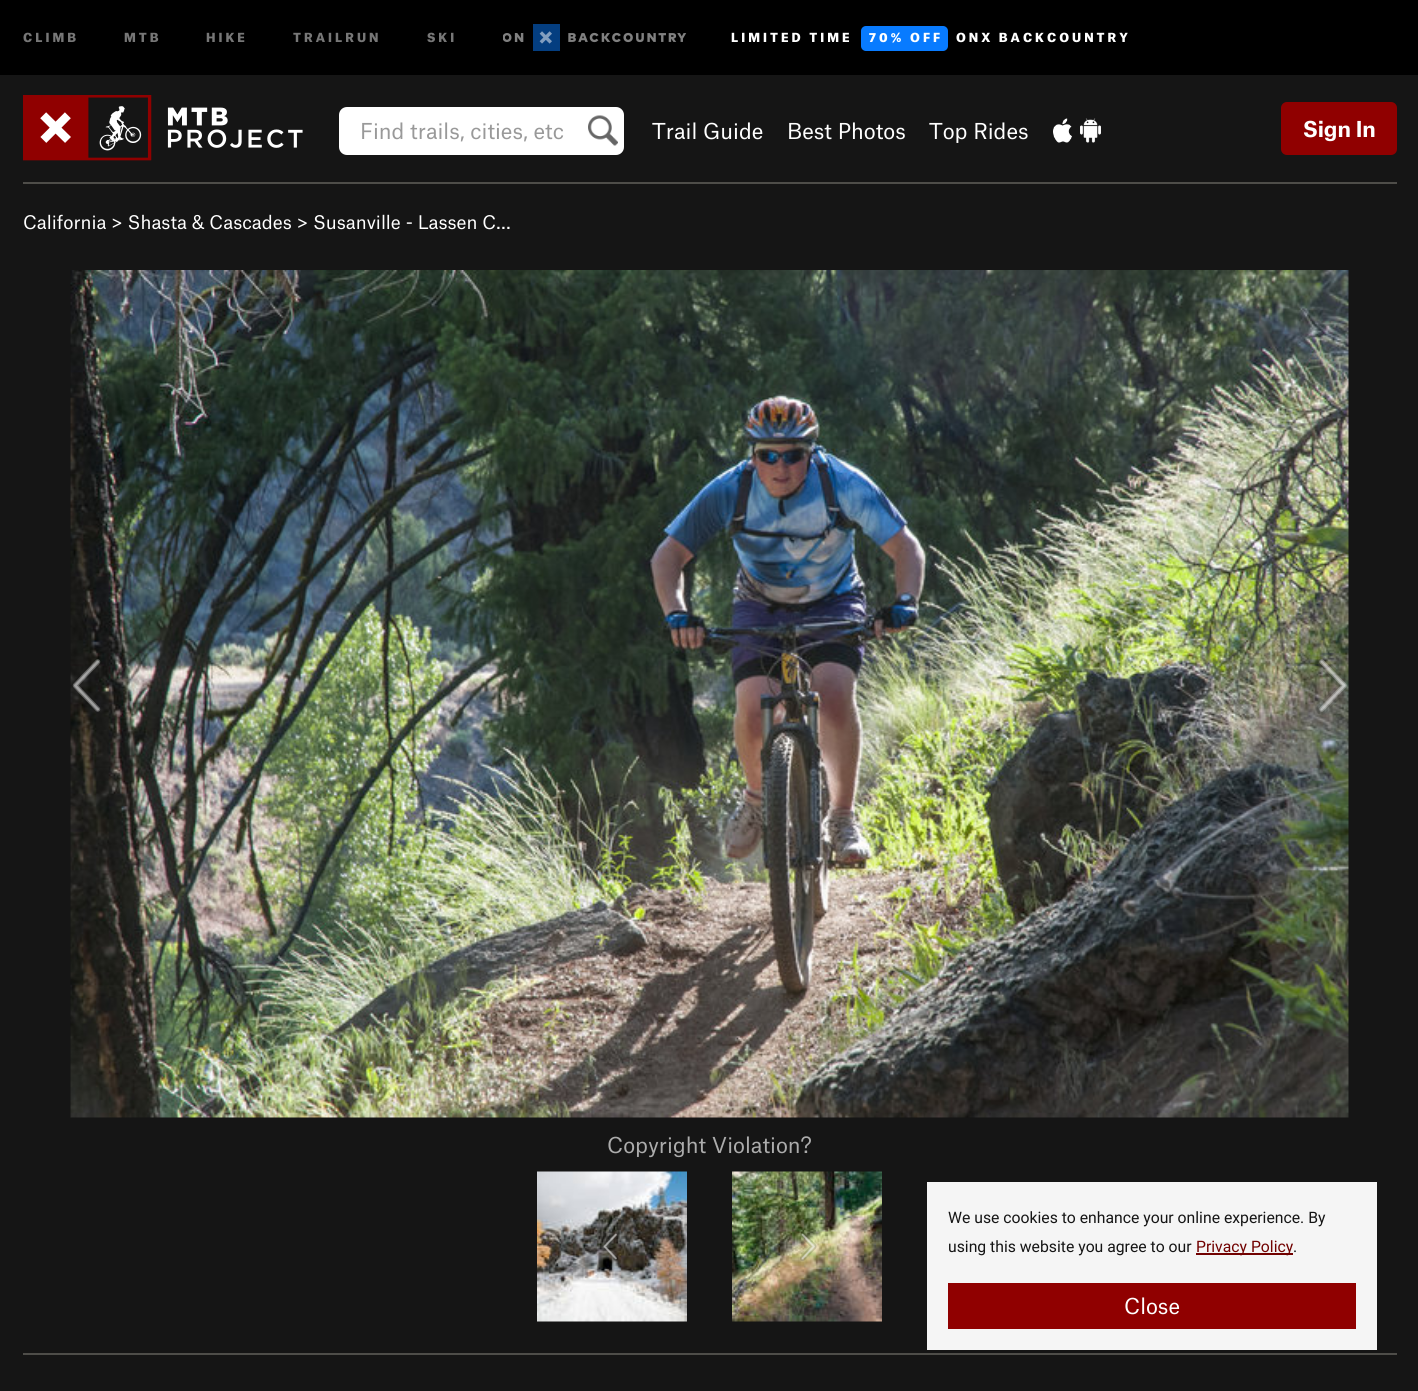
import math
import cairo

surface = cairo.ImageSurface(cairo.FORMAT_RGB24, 1418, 1391)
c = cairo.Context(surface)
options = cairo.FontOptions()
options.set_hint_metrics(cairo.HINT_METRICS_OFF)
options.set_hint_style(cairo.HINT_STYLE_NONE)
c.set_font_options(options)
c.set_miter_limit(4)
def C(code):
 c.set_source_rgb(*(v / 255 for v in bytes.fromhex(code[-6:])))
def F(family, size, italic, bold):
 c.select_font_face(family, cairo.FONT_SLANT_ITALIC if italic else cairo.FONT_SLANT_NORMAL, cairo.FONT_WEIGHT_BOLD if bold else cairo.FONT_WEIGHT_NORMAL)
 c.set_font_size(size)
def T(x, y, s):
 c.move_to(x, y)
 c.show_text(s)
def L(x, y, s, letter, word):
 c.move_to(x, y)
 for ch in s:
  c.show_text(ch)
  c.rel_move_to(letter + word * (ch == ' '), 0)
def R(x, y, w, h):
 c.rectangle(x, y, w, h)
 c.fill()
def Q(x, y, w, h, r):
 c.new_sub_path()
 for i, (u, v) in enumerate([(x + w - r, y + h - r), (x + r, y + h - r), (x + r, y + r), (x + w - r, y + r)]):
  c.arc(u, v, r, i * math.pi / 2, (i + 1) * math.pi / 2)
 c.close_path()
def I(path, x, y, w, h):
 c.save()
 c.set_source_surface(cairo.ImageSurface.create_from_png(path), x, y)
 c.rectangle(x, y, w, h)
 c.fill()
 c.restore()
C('151515')
c.paint()
C('000000')
R(0,0,1418,75)
F('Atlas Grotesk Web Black',12,0,0)
C('777777')
L(23,42,'CLIMB',3,0)
L(124,42,'MTB',3,0)
L(206,42,'HIKE',3,0)
L(293,42,'TRAILRUN',3,0)
L(427,42,'SKI',3,0)
I('1.png',503,24,184,27)
C('ffffff')
L(731,42,'LIMITED TIME',3,0)
C('087bff')
Q(861,26,87,25,5)
c.fill()
C('ffffff')
L(869,42,'70% OFF',3,0)
L(956,42,'ONX BACKCOUNTRY',3,0)
I('2.png',23,95,280,66)
Q(339,107,285,48,8)
c.fill()
I('3.png',588,115,30,31)
F('Atlas Grotesk Web',21,0,0)
C('999999')
T(360,139,'Find trails, cities, etc')
C('ffffff')
T(652,139,'Trail Guide')
T(787,139,'Best Photos')
T(929,139,'Top Rides')
I('4.png',1053,118,19,25)
I('5.png',1080,118,21,25)
C('900000')
Q(1281,102,116,53,6)
c.fill()
F('Atlas Grotesk Web',21,0,1)
C('ffffff')
T(1303,137,'Sign In')
C('4e4d49')
R(23,182,1374,2)
F('Atlas Grotesk Web',18,0,0)
C('ffffff')
T(23,229,'California > Shasta & Cascades > Susanville - Lassen C…')
I('6.png',70,270,1279,848)
I('7.png',72,658,29,54)
I('8.png',1316,656,33,59)
F('Atlas Grotesk Web',21,0,0)
C('acacac')
T(607,1153,'Copyright Violation?')
I('9.png',537,1171,150,151)
I('10.png',602,1232,16,29)
I('11.png',732,1171,150,151)
I('12.png',800,1232,17,29)
C('4e4d49')
R(23,1353,1374,2)
C('f5f5f5')
R(927,1182,450,168)
F('Roboto',15.75,0,0)
C('151515')
T(948,1223,'We use cookies to enhance your online experience. By')
T(948,1252,'using this website you agree to our')
C('710100')
R(1196,1253,97,2)
T(1196,1252,'Privacy Policy')
C('151515')
T(1293,1252,'.')
C('900000')
R(948,1283,408,46)
F('Atlas Grotesk Web',21,0,0)
C('ffffff')
T(1124,1314,'Close')
surface.write_to_png('o.png')
